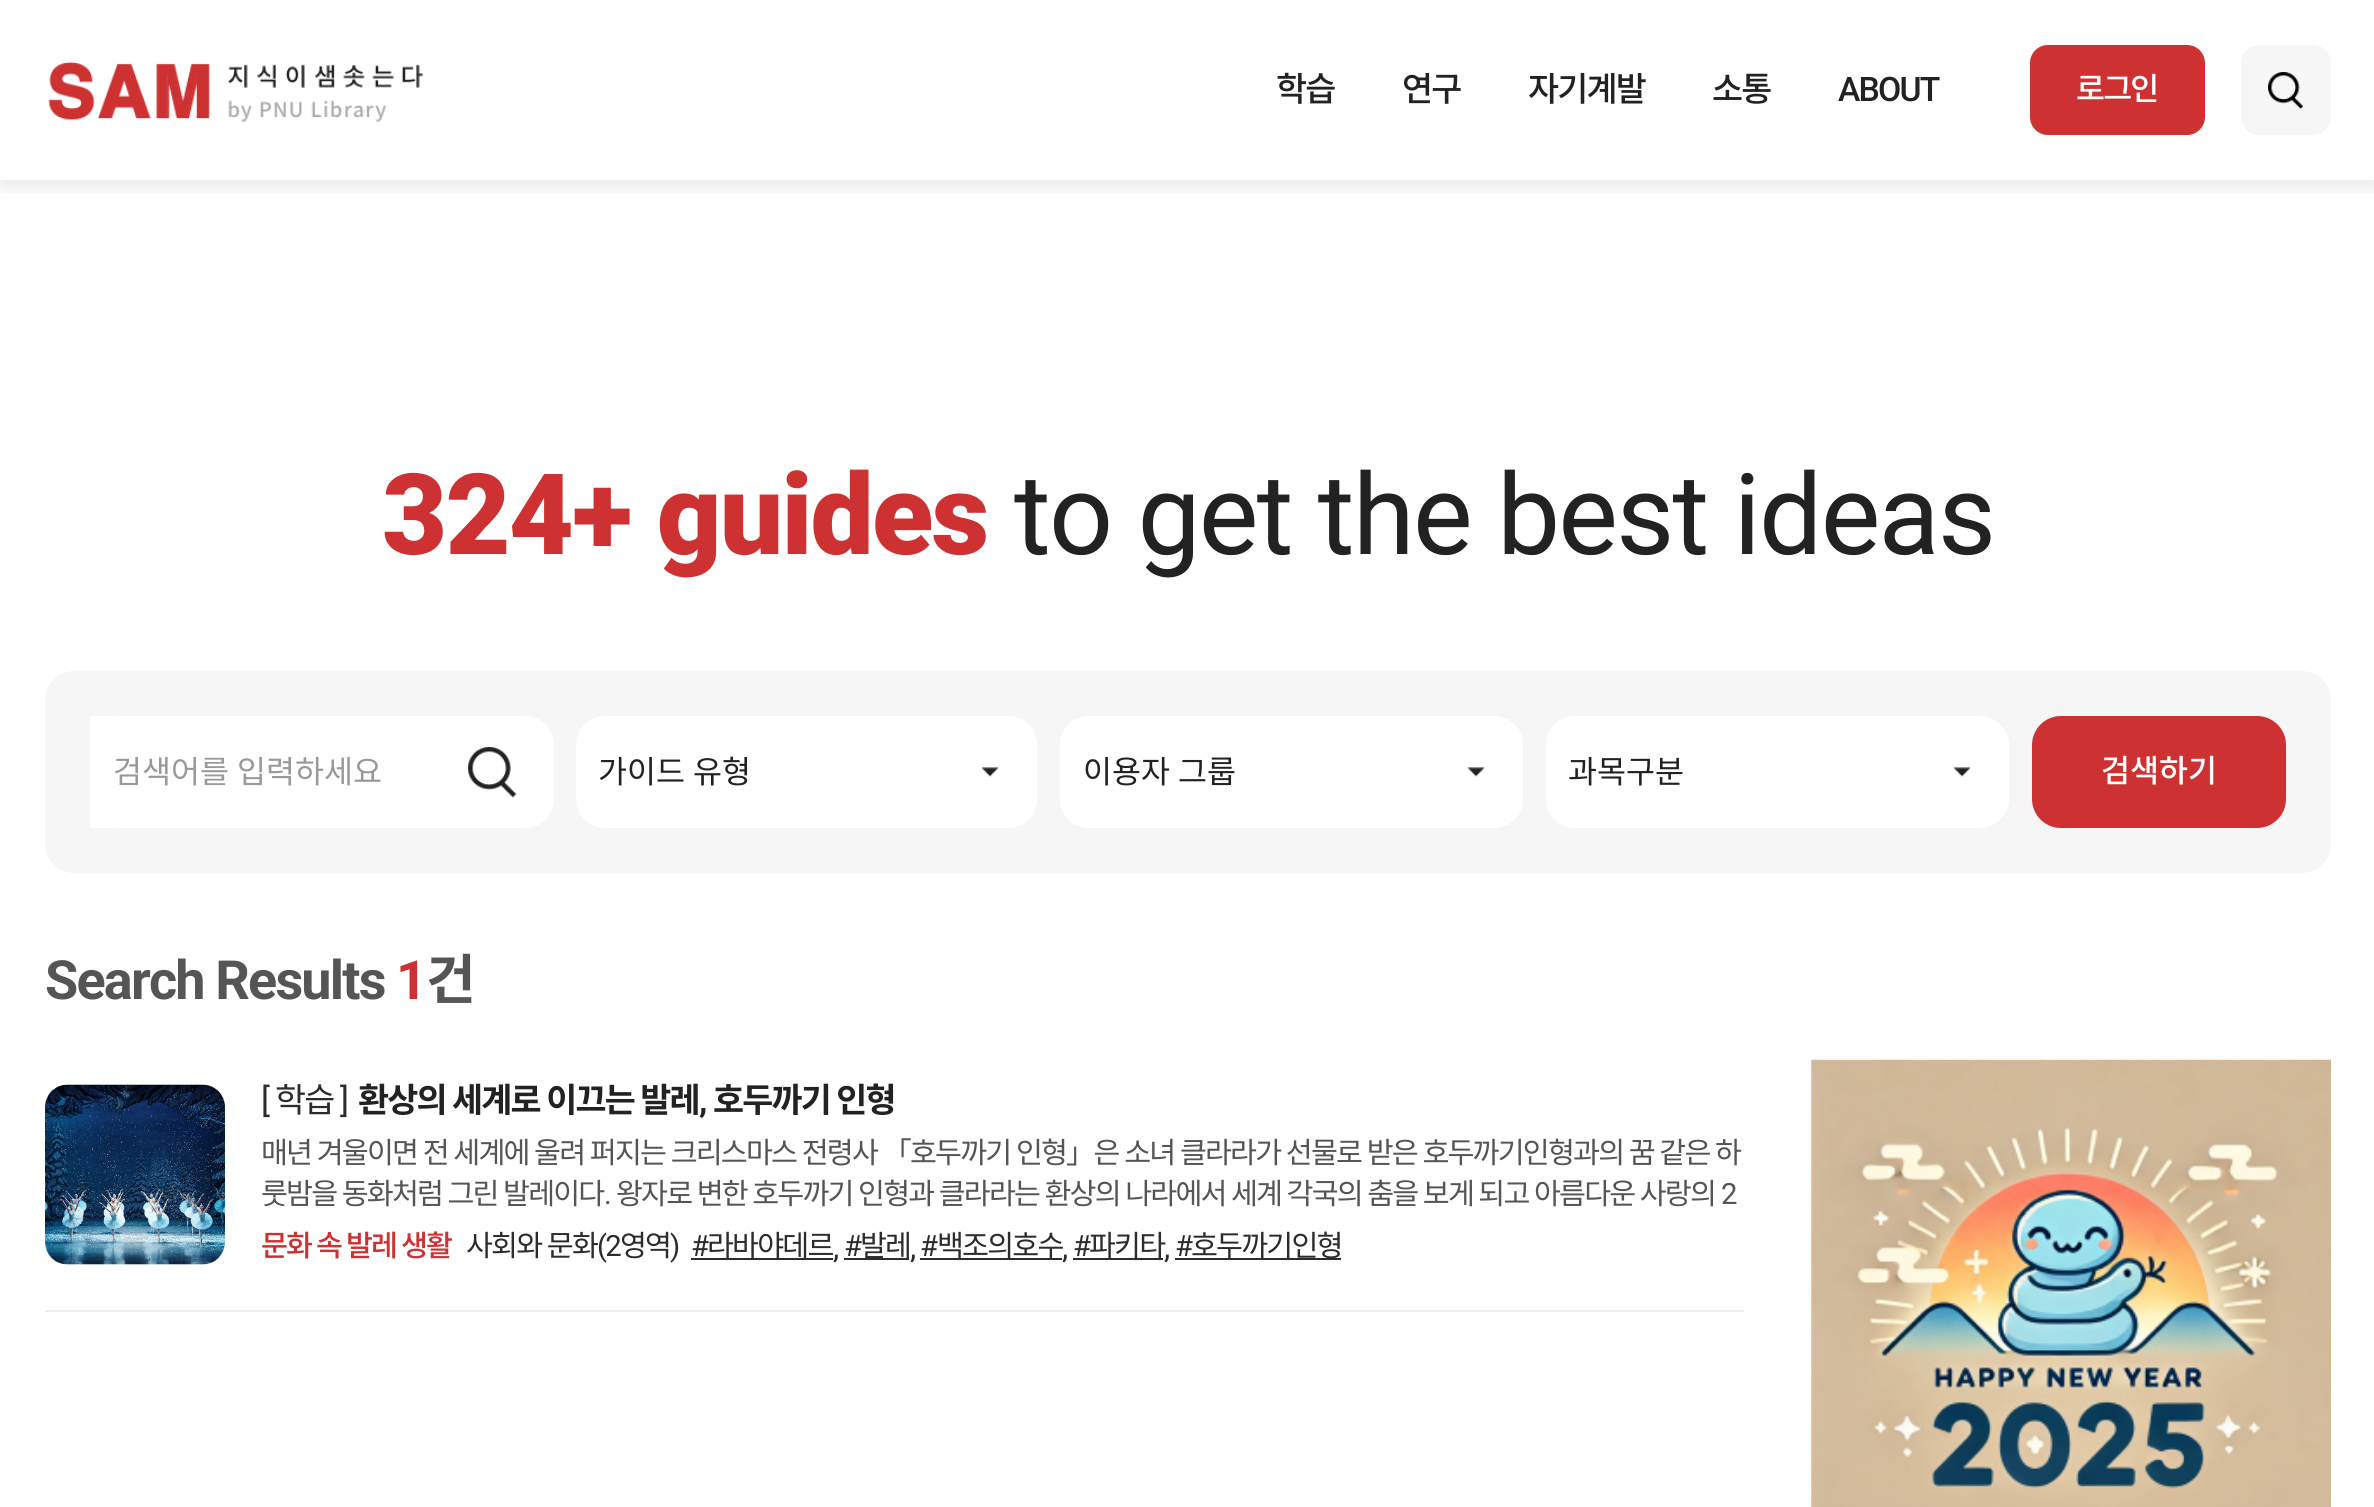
import math
import cairo

surface = cairo.ImageSurface(cairo.FORMAT_RGB24, 2374, 1507)
c = cairo.Context(surface)
options = cairo.FontOptions()
options.set_hint_metrics(cairo.HINT_METRICS_OFF)
options.set_hint_style(cairo.HINT_STYLE_NONE)
c.set_font_options(options)
c.set_miter_limit(4)
def C(code):
 c.set_source_rgb(*(v / 255 for v in bytes.fromhex(code[-6:])))
def F(family, size, italic, bold):
 c.select_font_face(family, cairo.FONT_SLANT_ITALIC if italic else cairo.FONT_SLANT_NORMAL, cairo.FONT_WEIGHT_BOLD if bold else cairo.FONT_WEIGHT_NORMAL)
 c.set_font_size(size)
def T(x, y, s):
 c.move_to(x, y)
 c.show_text(s)
def L(x, y, s, letter, word):
 c.move_to(x, y)
 for ch in s:
  c.show_text(ch)
  c.rel_move_to(letter + word * (ch == ' '), 0)
def R(x, y, w, h):
 c.rectangle(x, y, w, h)
 c.fill()
def Q(x, y, w, h, r):
 c.new_sub_path()
 for i, (u, v) in enumerate([(x + w - r, y + h - r), (x + r, y + h - r), (x + r, y + r), (x + w - r, y + r)]):
  c.arc(u, v, r, i * math.pi / 2, (i + 1) * math.pi / 2)
 c.close_path()
def S(x, y, w, h, r, blur, alpha):
 c.push_group_with_content(cairo.CONTENT_ALPHA)
 c.set_operator(cairo.OPERATOR_SOURCE)
 for i in range(15, -16, -2):
  e = blur * i / 6
  if min(w, h) + 2 * e > 0:
   c.set_source_rgba(0, 0, 0, alpha * math.erfc((i - 1) / 8.5) / 2)
   Q(x - e, y - e, w + 2 * e, h + 2 * e, max(0, min(r + e + blur * .6, min(w, h) / 2 + e)))
   c.fill()
 c.mask(c.pop_group())
def I(path, x, y, w, h):
 c.save()
 c.set_source_surface(cairo.ImageSurface.create_from_png(path), x, y)
 c.rectangle(x, y, w, h)
 c.fill()
 c.restore()
C('ffffff')
c.paint()
c.save()
c.rectangle(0,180,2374,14)
c.clip()
C('000000')
S(0,5,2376,180,0,11,.1)
c.restore()
I('1.png',48,61,376,62)
F('Noto Sans KR Medium',33.75,0,0)
C('222222')
L(1276,101,'학습',-1.8,0)
L(1402,101,'연구',-1.8,0)
L(1528,101,'자기계발',-1.8,0)
L(1712,101,'소통',-1.8,0)
F('Roboto Medium',33.75,0,0)
L(1838,101,'ABOUT',-1.8,0)
C('ce3131')
Q(2031,46,173,88,17)
c.fill_preserve()
c.stroke()
F('Noto Sans KR Medium',31.5,0,0)
C('ffffff')
L(2076,100,'로그인',-1.8,0)
C('f6f6f6')
Q(2241,45,90,90,18)
c.fill()
I('2.png',2268,72,35,38)
F('Roboto Black',112.5,0,0)
C('ce3131')
L(382,554,'324+ guides',-1.8,0)
F('Roboto',112.5,0,0)
C('222222')
L(1014,554,'to get the best ideas',-1.8,0)
C('f6f6f6')
Q(45,671,2286,202,29)
c.fill()
C('ffffff')
Q(90,716,464,112,29)
c.fill()
R(90,716,25,112)
F('Noto Sans KR',31.5,0,0)
C('999999')
L(113,783,'검색어를 입력하세요',0,1)
I('3.png',468,747,49,51)
C('ffffff')
Q(576,716,461,112,29)
c.fill()
I('4.png',981,767,18,10)
C('222222')
L(598,783,'가이드 유형',0,1)
C('ffffff')
Q(1060,716,463,112,29)
c.fill()
I('4.png',1467,767,18,10)
C('222222')
L(1083,783,'이용자 그룹',0,1)
C('ffffff')
Q(1546,716,463,112,29)
c.fill()
I('4.png',1953,767,18,10)
C('222222')
T(1568,783,'과목구분')
C('ce3131')
Q(2033,717,252,110,28)
c.fill_preserve()
c.stroke()
F('Noto Sans KR Medium',31.5,0,0)
C('ffffff')
T(2101,782,'검색하기')
F('Roboto',54,0,1)
C('555555')
L(45,999,'Search Results',-1.8,0)
C('ce3131')
L(396,999,'1',-1.8,0)
F('Noto Sans KR',54,0,1)
C('555555')
L(426,999,'건',-1.8,0)
C('eeeeee')
R(45,1310,1699,2)
C('f3f5f9')
Q(45,1085,180,180,23)
c.fill()
I('5.png',46,1084,179,23)
I('6.png',45,1084,180,181)
F('Roboto',33.75,0,0)
C('2c2c2c')
L(261,1112,'[',-1.8,0)
F('Noto Sans KR',33.75,0,0)
L(275,1112,'학습',-1.8,0)
F('Roboto',33.75,0,0)
L(340,1112,']',-1.8,0)
F('Noto Sans KR',33.75,0,1)
C('222222')
L(358,1112,'환상의 세계로 이끄는 발레',-1.8,.5)
F('Roboto',33.75,0,1)
L(699,1112,',',-1.8,0)
F('Noto Sans KR',33.75,0,1)
L(713,1112,'호두까기 인형',-1.8,.5)
F('Noto Sans KR',29.25,0,0)
C('555555')
L(261,1163,'매년 겨울이면 전 세계에 울려 퍼지는 크리스마스 전령사 「호두까기 인형」은 소녀 클라라가 선물로 받은 호두까기인형과의 꿈 같은 하',-1.8,.75)
L(261,1204,'룻밤을 동화처럼 그린 발레이다',-1.8,.6)
F('Roboto',29.25,0,0)
L(604,1204,'.',-1.8,0)
F('Noto Sans KR',29.25,0,0)
L(616,1204,'왕자로 변한 호두까기 인형과 클라라는 환상의 나라에서 세계 각국의 춤을 보게 되고 아름다운 사랑의',-1.8,.6)
F('Roboto',29.25,0,0)
L(1721,1204,'2',-1.8,0)
F('Noto Sans KR Medium',29.25,0,0)
C('ce3131')
L(261,1256,'문화 속 발레 생활',-1.8,0)
F('Noto Sans KR',29.25,0,0)
C('2c2c2c')
L(466,1256,'사회와 문화',-1.8,.75)
F('Roboto',29.25,0,0)
L(597,1256,'(2',-1.8,0)
F('Noto Sans KR',29.25,0,0)
L(620,1256,'영역',-1.8,0)
F('Roboto',29.25,0,0)
L(670,1256,')',-1.8,0)
L(691,1256,'#',-1.8,0)
R(691,1258,142,2)
F('Noto Sans KR',29.25,0,0)
L(707,1256,'라바야데르',-1.8,0)
F('Roboto',29.25,0,0)
L(844,1256,'#',-1.8,0)
R(844,1258,65,2)
F('Noto Sans KR',29.25,0,0)
L(860,1256,'발레',-1.8,0)
F('Roboto',29.25,0,0)
L(920,1256,'#',-1.8,0)
R(920,1258,142,2)
F('Noto Sans KR',29.25,0,0)
L(937,1256,'백조의호수',-1.8,0)
F('Roboto',29.25,0,0)
L(1073,1256,'#',-1.8,0)
R(1073,1258,90,2)
F('Noto Sans KR',29.25,0,0)
L(1089,1256,'파키타',-1.8,0)
F('Roboto',29.25,0,0)
L(1175,1256,'#',-1.8,0)
R(1175,1258,166,2)
F('Noto Sans KR',29.25,0,0)
L(1191,1256,'호두까기인형',-1.8,0)
F('Roboto',31.5,0,0)
L(833,1258,',',-1.8,0)
L(910,1258,',',-1.8,0)
L(1062,1258,',',-1.8,0)
L(1164,1258,',',-1.8,0)
I('7.png',1811,1059,520,448)
surface.write_to_png('o.png')
